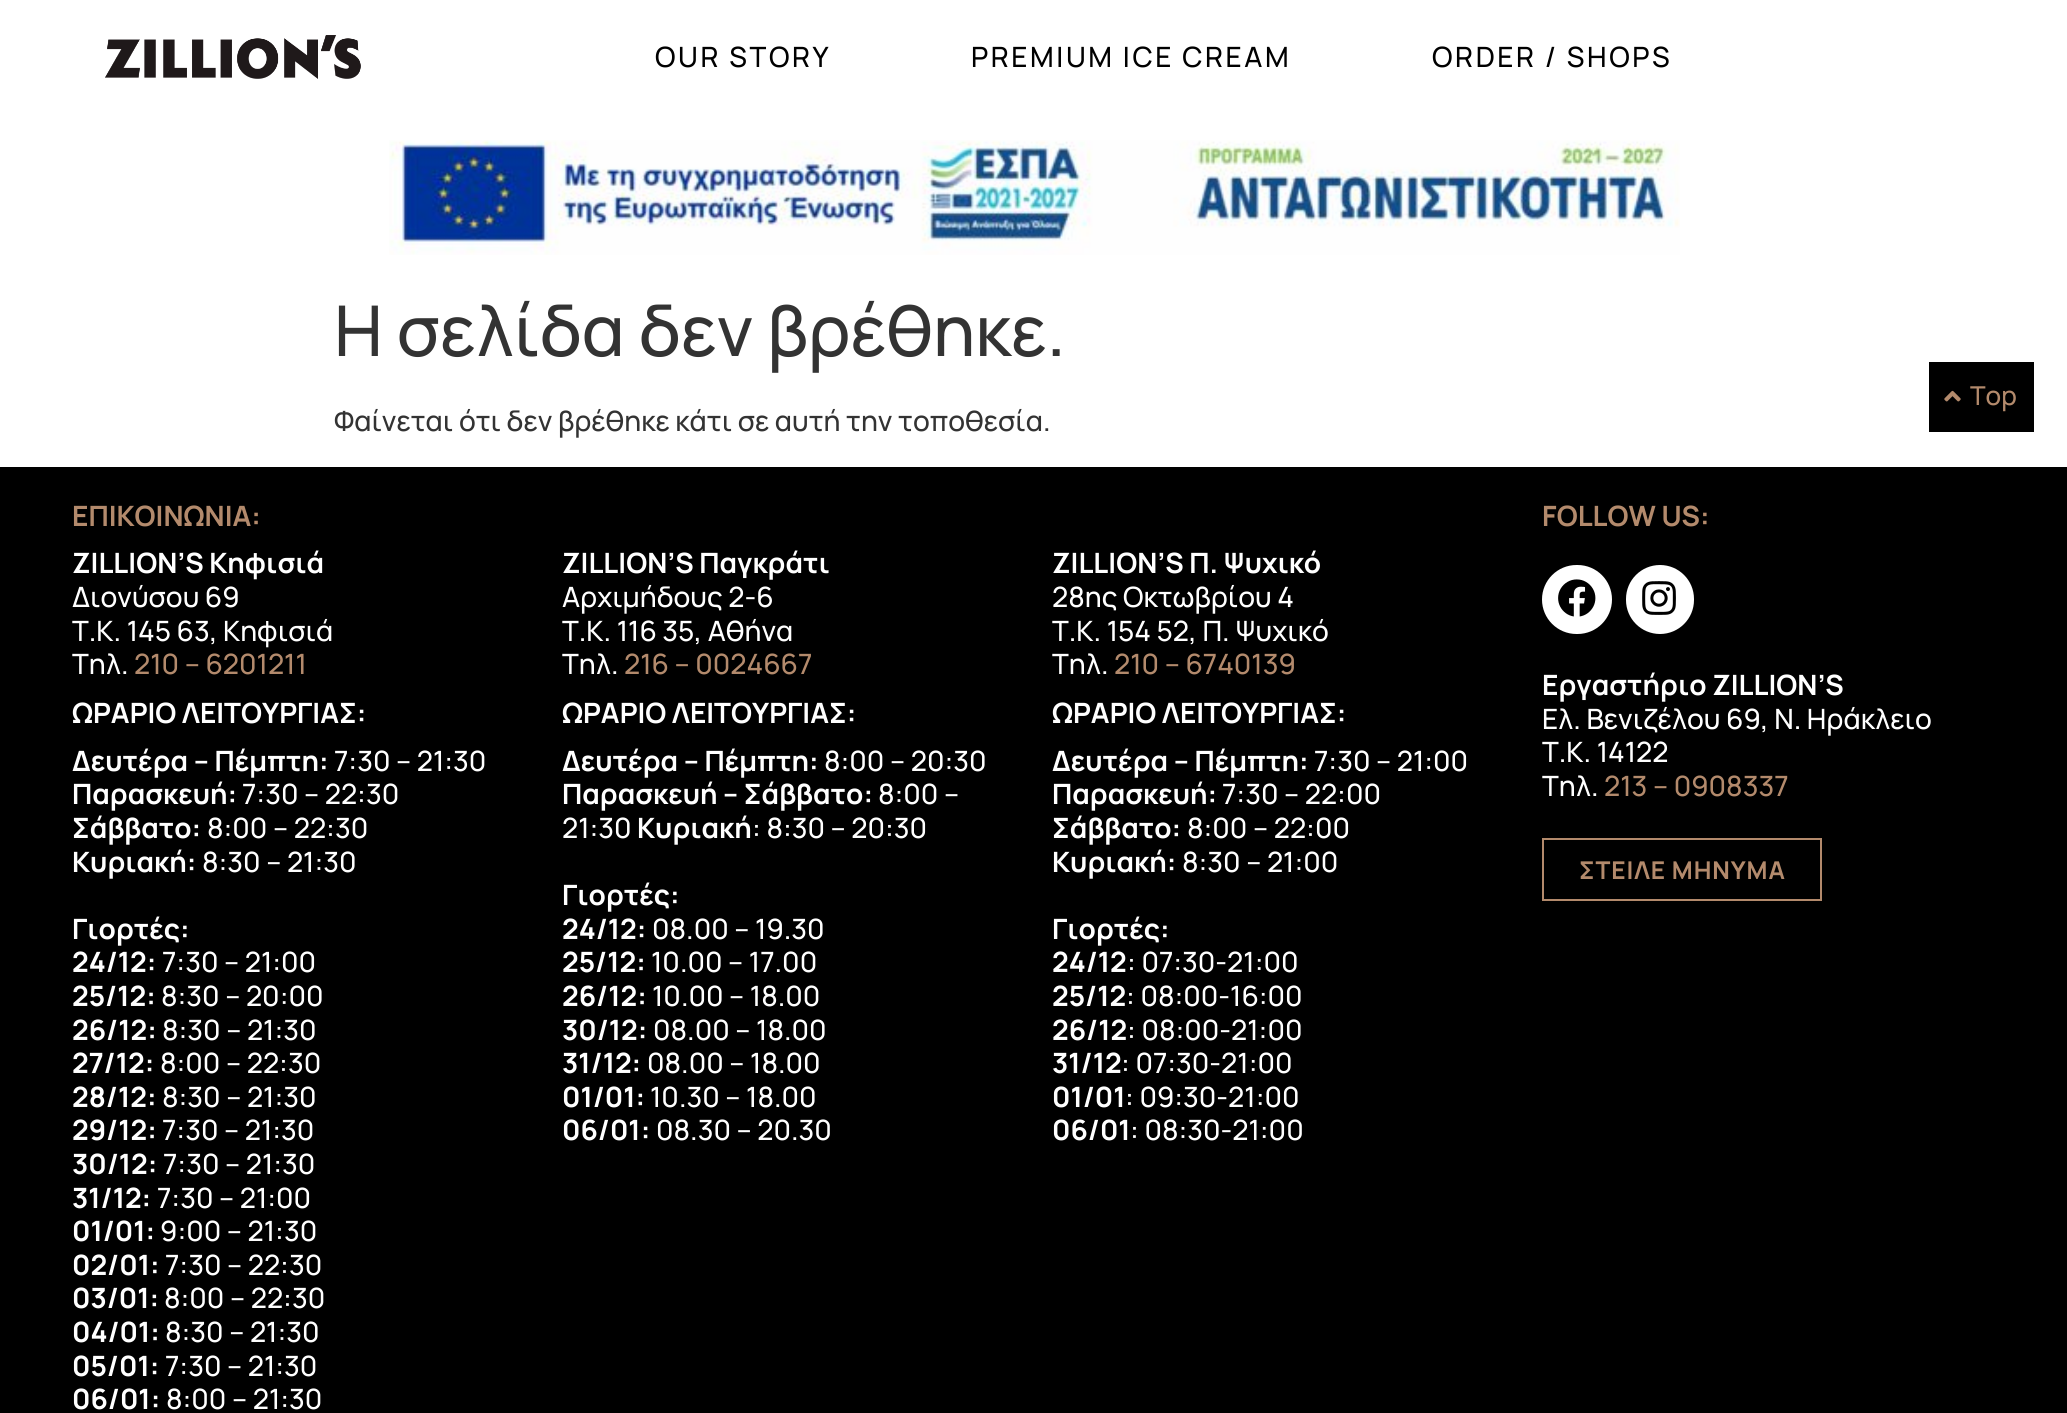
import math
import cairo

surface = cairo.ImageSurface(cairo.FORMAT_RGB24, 2067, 1413)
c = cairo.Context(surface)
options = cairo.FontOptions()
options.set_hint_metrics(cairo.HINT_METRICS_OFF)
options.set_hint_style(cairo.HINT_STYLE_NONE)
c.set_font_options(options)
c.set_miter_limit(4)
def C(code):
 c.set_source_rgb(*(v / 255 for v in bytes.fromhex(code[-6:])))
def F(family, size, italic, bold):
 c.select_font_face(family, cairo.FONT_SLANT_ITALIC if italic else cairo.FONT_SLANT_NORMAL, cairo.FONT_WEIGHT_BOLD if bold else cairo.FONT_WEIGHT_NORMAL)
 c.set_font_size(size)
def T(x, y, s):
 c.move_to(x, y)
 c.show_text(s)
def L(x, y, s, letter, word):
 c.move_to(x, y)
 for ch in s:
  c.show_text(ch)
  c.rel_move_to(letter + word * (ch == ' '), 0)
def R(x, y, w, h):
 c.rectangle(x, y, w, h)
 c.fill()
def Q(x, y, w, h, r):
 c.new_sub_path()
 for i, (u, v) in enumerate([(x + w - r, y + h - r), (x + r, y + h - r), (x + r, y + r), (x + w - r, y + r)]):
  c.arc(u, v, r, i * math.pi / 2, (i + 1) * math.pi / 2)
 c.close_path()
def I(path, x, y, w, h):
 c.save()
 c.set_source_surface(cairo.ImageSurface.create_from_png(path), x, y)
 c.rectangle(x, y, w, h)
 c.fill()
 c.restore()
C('ffffff')
c.paint()
I('1.png',105,35,256,44)
F('Manrope Medium',28,0,0)
C('000000')
L(655,67,'OUR STORY',2.6,0)
L(971,67,'PREMIUM ICE CREAM',2.6,0)
L(1432,67,'ORDER / SHOPS',2.6,0)
I('2.png',389,140,1291,115)
F('Manrope Medium',70,0,0)
C('333333')
T(334,356,'Η σελίδα δεν βρέθηκε.')
F('Manrope Medium',28,0,0)
T(334,431,'Φαίνεται ότι δεν βρέθηκε κάτι σε αυτή την τοποθεσία.')
C('000000')
R(1929,362,105,70)
I('3.png',1944,390,17,12)
F('Manrope Medium',26,0,0)
C('b38a6c')
T(1970,405,'Top')
C('000000')
R(0,467,2067,946)
F('Manrope',28,0,1)
C('b38a6c')
T(72,526,'ΕΠΙΚΟΙΝΩΝΙΑ:')
C('ffffff')
T(72,573,'ZILLION’S Κηφισιά')
F('Manrope Medium',28,0,0)
T(72,607,'Διονύσου 69')
T(72,641,'Τ.Κ. 145 63, Κηφισιά')
T(72,674,'Τηλ.')
C('b38a6c')
T(134,674,'210 – 6201211')
F('Manrope',28,0,1)
C('ffffff')
T(72,723,'ΩΡΑΡΙΟ ΛΕΙΤΟΥΡΓΙΑΣ:')
T(72,771,'Δευτέρα – Πέμπτη:')
F('Manrope Medium',28,0,0)
T(334,771,'7:30 – 21:30')
F('Manrope',28,0,1)
T(72,804,'Παρασκευή:')
F('Manrope Medium',28,0,0)
T(242,804,'7:30 – 22:30')
F('Manrope',28,0,1)
T(72,838,'Σάββατο:')
F('Manrope Medium',28,0,0)
T(207,838,'8:00 – 22:30')
F('Manrope',28,0,1)
T(72,872,'Κυριακή:')
F('Manrope Medium',28,0,0)
T(202,872,'8:30 – 21:30')
F('Manrope',28,0,1)
T(72,939,'Γιορτές:')
T(72,972,'24/12:')
F('Manrope Medium',28,0,0)
T(162,972,'7:30 – 21:00')
F('Manrope',28,0,1)
T(72,1006,'25/12:')
F('Manrope Medium',28,0,0)
T(161,1006,'8:30 – 20:00')
F('Manrope',28,0,1)
T(72,1040,'26/12:')
F('Manrope Medium',28,0,0)
T(162,1040,'8:30 – 21:30')
F('Manrope',28,0,1)
T(72,1073,'27/12:')
F('Manrope Medium',28,0,0)
T(160,1073,'8:00 – 22:30')
F('Manrope',28,0,1)
T(72,1107,'28/12:')
F('Manrope Medium',28,0,0)
T(162,1107,'8:30 – 21:30')
F('Manrope',28,0,1)
T(72,1140,'29/12:')
F('Manrope Medium',28,0,0)
T(162,1140,'7:30 – 21:30')
F('Manrope',28,0,1)
T(72,1174,'30/12:')
F('Manrope Medium',28,0,0)
T(163,1174,'7:30 – 21:30')
F('Manrope',28,0,1)
T(72,1208,'31/12:')
F('Manrope Medium',28,0,0)
T(157,1208,'7:30 – 21:00')
F('Manrope',28,0,1)
T(72,1241,'01/01:')
F('Manrope Medium',28,0,0)
T(160,1241,'9:00 – 21:30')
F('Manrope',28,0,1)
T(72,1275,'02/01:')
F('Manrope Medium',28,0,0)
T(165,1275,'7:30 – 22:30')
F('Manrope',28,0,1)
T(72,1308,'03/01:')
F('Manrope Medium',28,0,0)
T(164,1308,'8:00 – 22:30')
F('Manrope',28,0,1)
T(72,1342,'04/01:')
F('Manrope Medium',28,0,0)
T(165,1342,'8:30 – 21:30')
F('Manrope',28,0,1)
T(72,1376,'05/01:')
F('Manrope Medium',28,0,0)
T(165,1376,'7:30 – 21:30')
F('Manrope',28,0,1)
T(72,1409,'06/01:')
F('Manrope Medium',28,0,0)
T(166,1409,'8:00 – 21:30')
F('Manrope',28,0,1)
T(562,573,'ZILLION’S Παγκράτι')
F('Manrope Medium',28,0,0)
T(562,607,'Αρχιμήδους 2-6')
T(562,641,'Τ.Κ. 116 35, Αθήνα')
T(562,674,'Τηλ.')
C('b38a6c')
T(624,674,'216 – 0024667')
F('Manrope',28,0,1)
C('ffffff')
T(562,723,'ΩΡΑΡΙΟ ΛΕΙΤΟΥΡΓΙΑΣ:')
T(562,771,'Δευτέρα – Πέμπτη:')
F('Manrope Medium',28,0,0)
T(824,771,'8:00 – 20:30')
F('Manrope',28,0,1)
T(562,804,'Παρασκευή – Σάββατο:')
F('Manrope Medium',28,0,0)
T(878,804,'8:00 –')
T(562,838,'21:30')
F('Manrope',28,0,1)
T(637,838,'Κυριακή')
F('Manrope Medium',28,0,0)
T(752,838,': 8:30 – 20:30')
F('Manrope',28,0,1)
T(562,905,'Γιορτές:')
T(562,939,'24/12:')
F('Manrope Medium',28,0,0)
T(652,939,'08.00 – 19.30')
F('Manrope',28,0,1)
T(562,972,'25/12:')
F('Manrope Medium',28,0,0)
T(651,972,'10.00 – 17.00')
F('Manrope',28,0,1)
T(562,1006,'26/12:')
F('Manrope Medium',28,0,0)
T(652,1006,'10.00 – 18.00')
F('Manrope',28,0,1)
T(562,1040,'30/12:')
F('Manrope Medium',28,0,0)
T(653,1040,'08.00 – 18.00')
F('Manrope',28,0,1)
T(562,1073,'31/12:')
F('Manrope Medium',28,0,0)
T(647,1073,'08.00 – 18.00')
F('Manrope',28,0,1)
T(562,1107,'01/01:')
F('Manrope Medium',28,0,0)
T(650,1107,'10.30 – 18.00')
F('Manrope',28,0,1)
T(562,1140,'06/01:')
F('Manrope Medium',28,0,0)
T(656,1140,'08.30 – 20.30')
F('Manrope',28,0,1)
T(1052,573,'ZILLION’S Π. Ψυχικό')
F('Manrope Medium',28,0,0)
T(1052,607,'28ης Οκτωβρίου 4')
T(1052,641,'Τ.Κ. 154 52, Π. Ψυχικό')
T(1052,674,'Τηλ.')
C('b38a6c')
T(1114,674,'210 – 6740139')
F('Manrope',28,0,1)
C('ffffff')
T(1052,723,'ΩΡΑΡΙΟ ΛΕΙΤΟΥΡΓΙΑΣ:')
T(1052,771,'Δευτέρα – Πέμπτη:')
F('Manrope Medium',28,0,0)
T(1314,771,'7:30 – 21:00')
F('Manrope',28,0,1)
T(1052,804,'Παρασκευή:')
F('Manrope Medium',28,0,0)
T(1222,804,'7:30 – 22:00')
F('Manrope',28,0,1)
T(1052,838,'Σάββατο:')
F('Manrope Medium',28,0,0)
T(1187,838,'8:00 – 22:00')
F('Manrope',28,0,1)
T(1052,872,'Κυριακή:')
F('Manrope Medium',28,0,0)
T(1182,872,'8:30 – 21:00')
F('Manrope',28,0,1)
T(1052,939,'Γιορτές:')
T(1052,972,'24/12')
F('Manrope Medium',28,0,0)
T(1127,972,': 07:30-21:00')
F('Manrope',28,0,1)
T(1052,1006,'25/12')
F('Manrope Medium',28,0,0)
T(1126,1006,': 08:00-16:00')
F('Manrope',28,0,1)
T(1052,1040,'26/12')
F('Manrope Medium',28,0,0)
T(1127,1040,': 08:00-21:00')
F('Manrope',28,0,1)
T(1052,1073,'31/12')
F('Manrope Medium',28,0,0)
T(1121,1073,': 07:30-21:00')
F('Manrope',28,0,1)
T(1052,1107,'01/01')
F('Manrope Medium',28,0,0)
T(1125,1107,': 09:30-21:00')
F('Manrope',28,0,1)
T(1052,1140,'06/01')
F('Manrope Medium',28,0,0)
T(1130,1140,': 08:30-21:00')
F('Manrope',28,0,1)
C('b38a6c')
T(1542,526,'FOLLOW US:')
C('ffffff')
Q(1542,565,70,69,34.5)
c.fill()
I('4.png',1558,579,38,38)
Q(1626,565,68,69,34)
c.fill()
I('5.png',1642,581,34,34)
T(1542,695,'Εργαστήριο ZILLION’S')
F('Manrope Medium',28,0,0)
T(1542,729,'Ελ. Βενιζέλου 69, Ν. Ηράκλειο')
T(1542,762,'T.K. 14122')
T(1542,796,'Τηλ.')
C('b38a6c')
T(1604,796,'213 – 0908337')
c.rectangle(1543,839,278,61)
c.stroke()
F('Manrope',24.5,0,1)
L(1579,879,'ΣΤΕΙΛΕ ΜΗΝΥΜΑ',.9,0)
surface.write_to_png('o.png')
